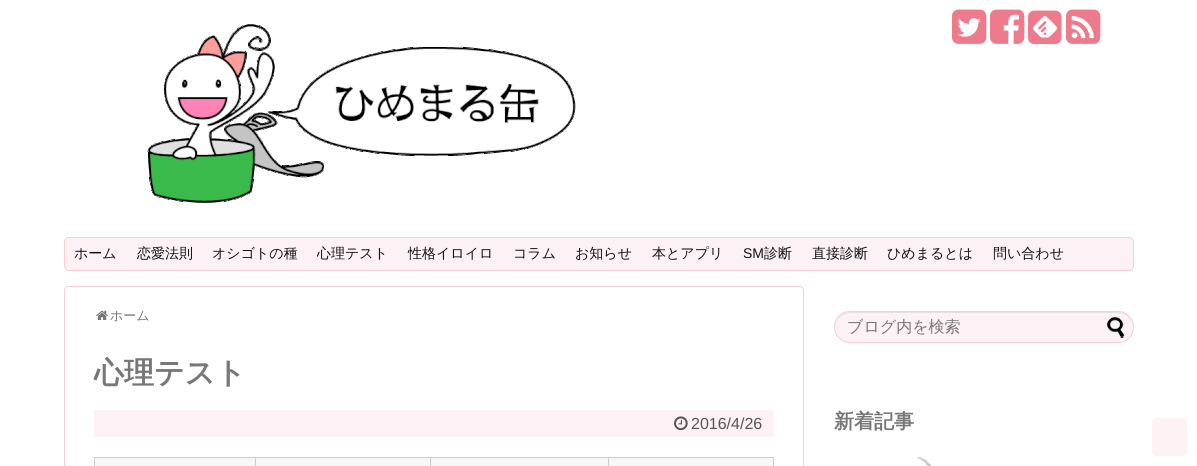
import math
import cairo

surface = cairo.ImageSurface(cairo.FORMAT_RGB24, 1197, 466)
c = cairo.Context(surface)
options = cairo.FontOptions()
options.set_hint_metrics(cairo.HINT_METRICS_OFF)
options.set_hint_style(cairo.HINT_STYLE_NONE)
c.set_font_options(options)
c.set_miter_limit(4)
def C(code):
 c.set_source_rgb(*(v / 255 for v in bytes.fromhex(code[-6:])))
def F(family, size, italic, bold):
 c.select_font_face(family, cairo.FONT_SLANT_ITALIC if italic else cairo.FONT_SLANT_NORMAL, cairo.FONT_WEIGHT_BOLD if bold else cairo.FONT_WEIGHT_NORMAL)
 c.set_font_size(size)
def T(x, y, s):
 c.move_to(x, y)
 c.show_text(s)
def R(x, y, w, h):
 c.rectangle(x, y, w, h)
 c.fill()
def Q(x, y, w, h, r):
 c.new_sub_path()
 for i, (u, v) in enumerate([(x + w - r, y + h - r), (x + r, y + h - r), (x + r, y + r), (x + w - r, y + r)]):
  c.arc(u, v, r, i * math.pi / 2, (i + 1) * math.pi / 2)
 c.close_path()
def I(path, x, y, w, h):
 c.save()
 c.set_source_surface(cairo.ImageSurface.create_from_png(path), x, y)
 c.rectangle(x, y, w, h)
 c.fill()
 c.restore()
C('ffffff')
c.paint()
I('1.png',147,24,429,179)
I('2.png',952,9,35,35)
I('3.png',990,9,35,35)
I('4.png',1028,10,34,35)
I('5.png',1066,9,35,35)
C('fcf1f5')
Q(64.5,237.5,1069,33,4.5)
c.fill_preserve()
C('f9cfd7')
c.set_line_width(1)
c.stroke()
F('WenQuanYi Zen Hei Medium',14,0,0)
C('111111')
T(74,258,'ホーム')
T(137,258,'恋愛法則')
T(212,258,'オシゴトの種')
T(317,258,'心理テスト')
T(408,258,'性格イロイロ')
T(513,258,'コラム')
T(575,258,'お知らせ')
T(652,258,'本とアプリ')
F('Liberation Sans',14,0,0)
T(743,258,'SM')
F('WenQuanYi Zen Hei Medium',14,0,0)
T(764,258,'診断')
T(812,258,'直接診断')
T(887,258,'ひめまるとは')
T(993,258,'問い合わせ')
Q(64.5,286.5,739,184,3.5)
C('f9cfd7')
c.stroke()
I('6.png',96,310,12,10)
F('WenQuanYi Zen Hei Medium',13,0,0)
C('777777')
T(110,320,'ホーム')
F('WenQuanYi Zen Hei',30,0,1)
T(94,383,'心理テスト')
C('fcf1f5')
R(94,410,680,27)
I('7.png',674,416,14,15)
F('Liberation Sans',16,0,0)
C('555555')
T(691,429,'2016/4/26')
C('cccccc')
R(94,457,680,1)
R(773,457,1,9)
C('f7f7f7')
R(94,458,679,8)
C('cccccc')
R(94,457,1,9)
R(255,457,1,9)
R(430,457,1,9)
R(608,457,1,9)
C('fcf1f5')
Q(834,311,300,32,16)
c.fill()
C('e9dfe3')
c.new_path()
c.move_to(850,313)
c.line_to(1118,313)
c.curve_to(1126,313,1133,320,1133,328)
c.curve_to(1133,319,1126,312,1118,312)
c.line_to(850,312)
c.curve_to(842,312,835,319,835,328)
c.curve_to(835,320,842,313,850,313)
c.close_path()
c.fill()
Q(834.5,311.5,299,31,15.5)
C('f9cfd7')
c.stroke()
F('WenQuanYi Zen Hei Medium',16,0,0)
C('777777')
T(847,332,'ブログ内を検索')
I('8.png',1107,317,17,21)
F('WenQuanYi Zen Hei',20,0,1)
T(834,428,'新着記事')
I('9.png',917,456,15,10)
C('fdf3f4')
Q(1152,418,35,38,4)
c.fill()
surface.write_to_png('o.png')
